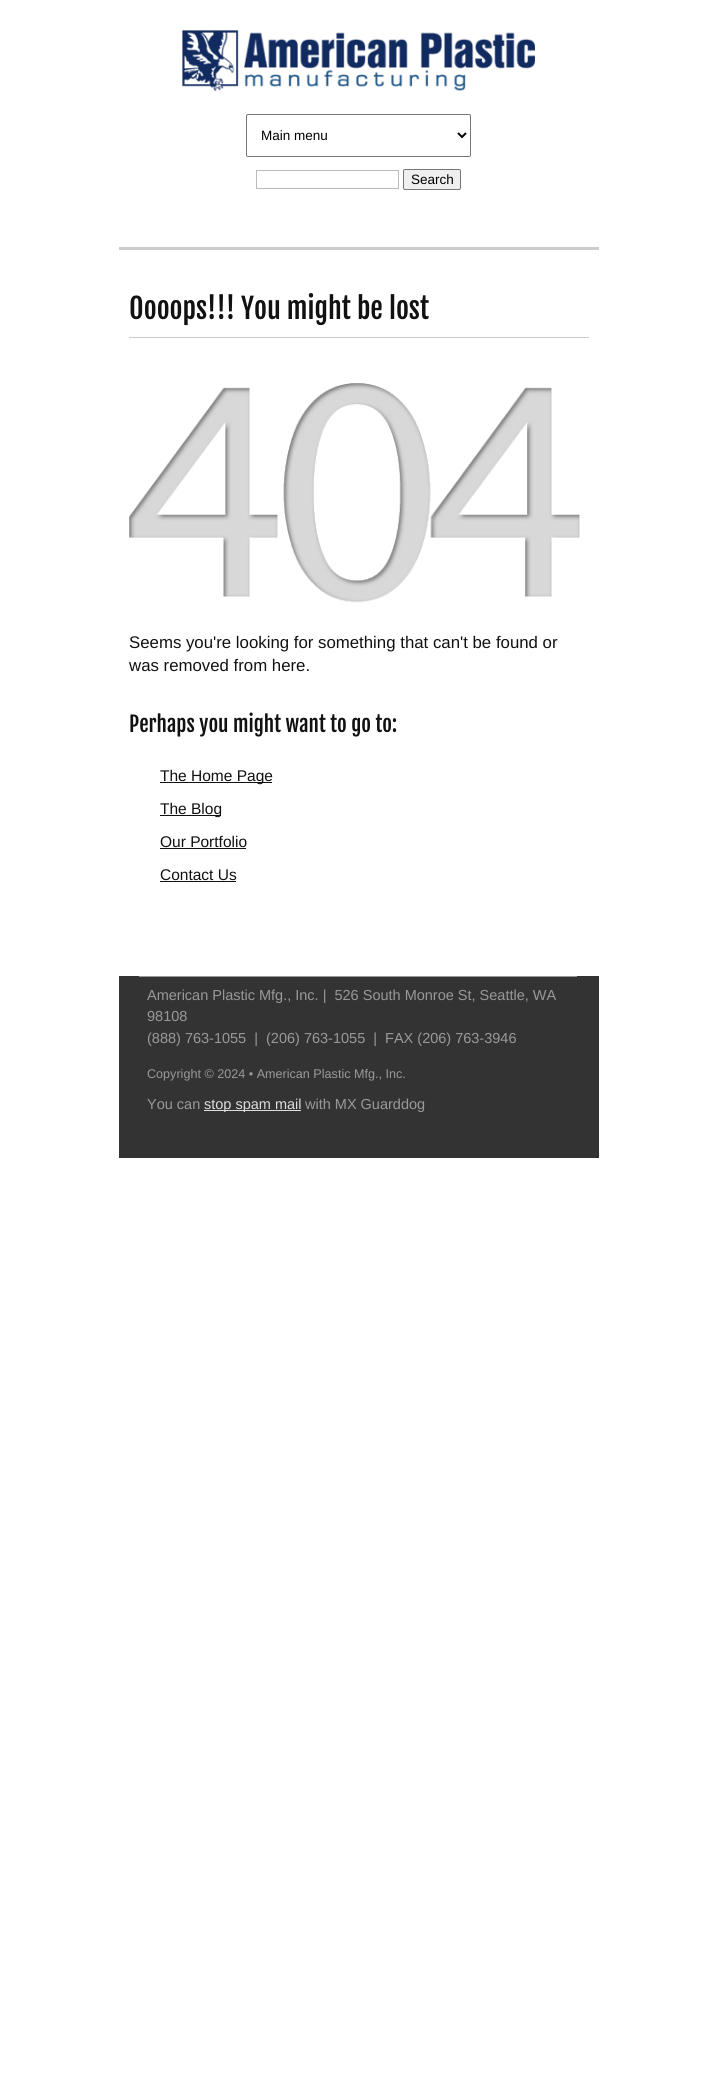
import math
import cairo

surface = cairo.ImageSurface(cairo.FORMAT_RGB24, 717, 2092)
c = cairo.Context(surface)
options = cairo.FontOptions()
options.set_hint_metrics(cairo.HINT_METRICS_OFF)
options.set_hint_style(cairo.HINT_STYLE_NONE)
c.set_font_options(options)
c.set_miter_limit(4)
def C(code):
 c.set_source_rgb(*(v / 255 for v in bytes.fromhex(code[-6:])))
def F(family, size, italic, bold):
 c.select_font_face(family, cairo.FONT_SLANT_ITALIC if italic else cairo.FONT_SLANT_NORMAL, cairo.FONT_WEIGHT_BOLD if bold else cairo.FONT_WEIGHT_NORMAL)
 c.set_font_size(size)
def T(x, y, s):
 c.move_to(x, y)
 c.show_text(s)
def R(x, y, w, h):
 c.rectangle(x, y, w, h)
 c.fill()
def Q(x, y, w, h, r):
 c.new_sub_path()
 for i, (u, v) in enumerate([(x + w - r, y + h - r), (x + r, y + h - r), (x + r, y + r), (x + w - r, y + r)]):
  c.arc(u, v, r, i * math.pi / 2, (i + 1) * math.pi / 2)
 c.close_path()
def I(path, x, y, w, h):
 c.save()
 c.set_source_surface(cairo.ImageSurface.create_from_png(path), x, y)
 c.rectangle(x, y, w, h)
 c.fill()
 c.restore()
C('ffffff')
c.paint()
C('cccccc')
R(119,247,480,3)
I('1.png',182,30,353,61)
Q(246.5,114.5,224,42,1.5)
C('767676')
c.set_line_width(1)
c.stroke()
c.new_path()
c.move_to(458,133)
c.line_to(462,137)
c.line_to(466,133)
C('000000')
c.set_line_width(2)
c.stroke()
F('Liberation Sans',13.5,0,0)
T(261,140,'Main menu')
c.rectangle(256.5,170.5,142,18)
C('bbbbbb')
c.set_line_width(1)
c.stroke()
C('efefef')
Q(403.5,169.5,57,20,1.5)
c.fill_preserve()
C('767676')
c.stroke()
C('000000')
T(411,184,'Search')
C('cccccc')
R(129,337,460,1)
F('Fjalla One',28,0,0)
C('111111')
T(129,319,'Oooops!!! You might be lost')
I('2.png',129,383,451,220)
F('Liberation Sans',16.8,0,0)
T(129,648,'Seems you\'re looking for something that can\'t be found or')
T(129,671,'was removed from here.')
F('Fjalla One',21,0,0)
T(129,732,'Perhaps you might want to go to:')
R(160,782,112,1)
F('Arimo',15.5,0,0)
T(160,781,'The Home Page')
R(160,815,61,1)
T(160,814,'The Blog')
T(160,847,'Our Portfolio')
R(160,848,86,1)
T(160,880,'Contact Us')
R(160,881,76,1)
C('333333')
R(119,976,480,182)
C('999999')
R(139,976,438,1)
F('Arimo',14.5,0,0)
T(147,1000,'American Plastic Mfg., Inc. |  526 South Monroe St, Seattle, WA')
T(147,1021,'98108')
T(147,1043,'(888) 763-1055  |  (206) 763-1055  |  FAX (206) 763-3946')
F('Liberation Sans',12.6,0,0)
T(147,1078,'Copyright © 2024 • American Plastic Mfg., Inc.')
F('Arimo',14.5,0,0)
T(147,1109,'You can')
C('dddddd')
R(204,1110,97,1)
T(204,1109,'stop spam mail')
C('999999')
T(305,1109,'with MX Guarddog')
surface.write_to_png('o.png')
